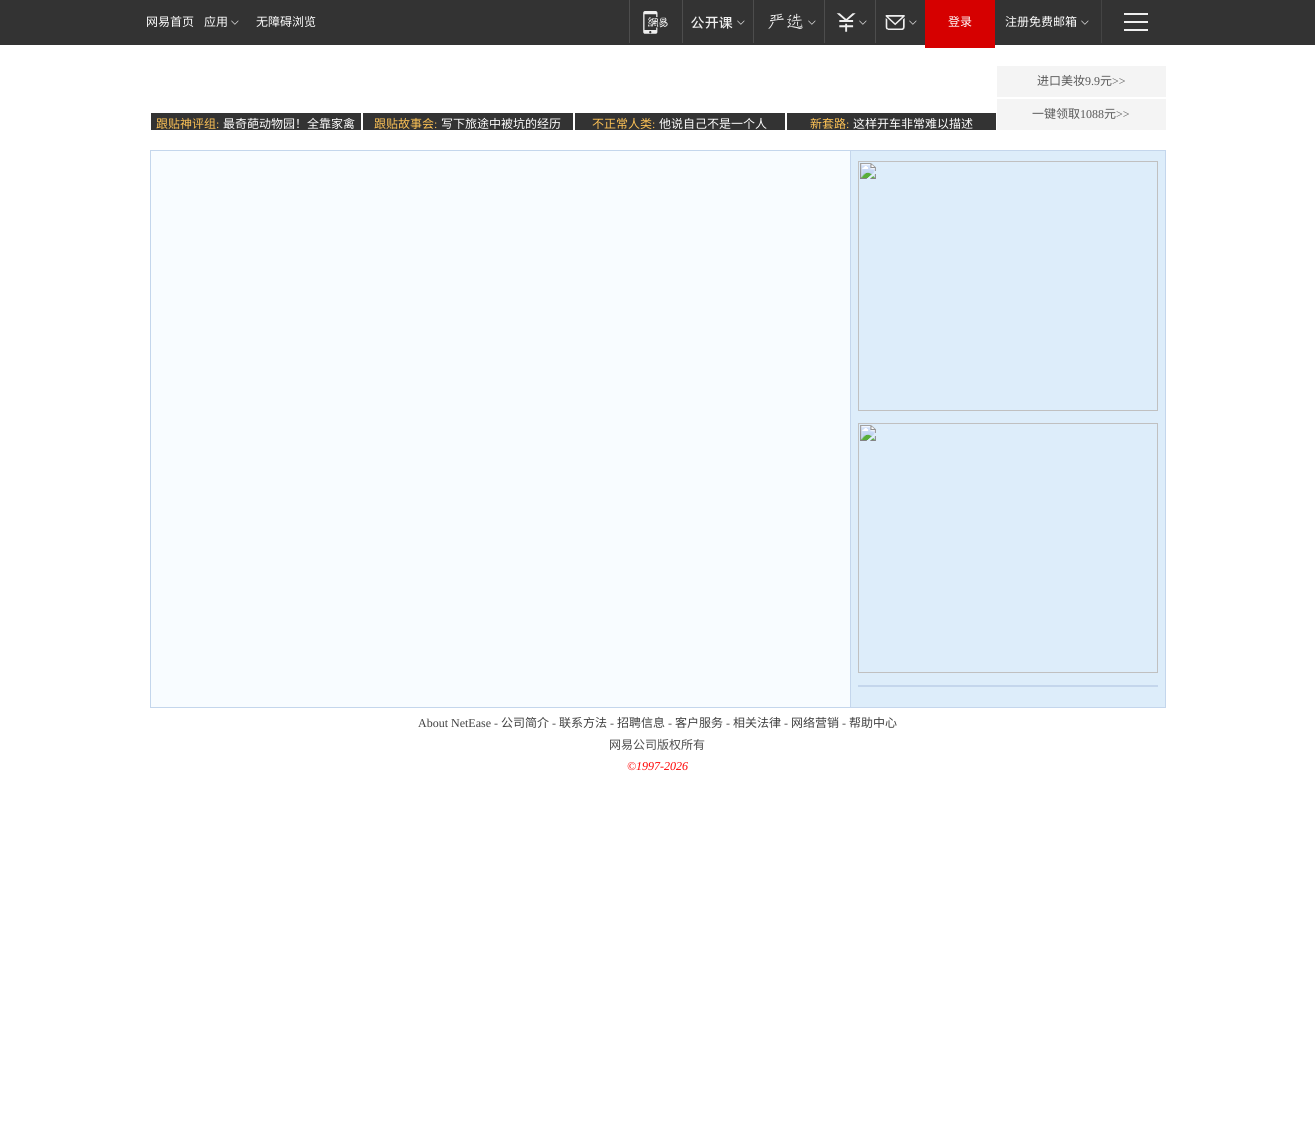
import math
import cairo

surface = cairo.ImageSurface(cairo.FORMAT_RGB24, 1315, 1130)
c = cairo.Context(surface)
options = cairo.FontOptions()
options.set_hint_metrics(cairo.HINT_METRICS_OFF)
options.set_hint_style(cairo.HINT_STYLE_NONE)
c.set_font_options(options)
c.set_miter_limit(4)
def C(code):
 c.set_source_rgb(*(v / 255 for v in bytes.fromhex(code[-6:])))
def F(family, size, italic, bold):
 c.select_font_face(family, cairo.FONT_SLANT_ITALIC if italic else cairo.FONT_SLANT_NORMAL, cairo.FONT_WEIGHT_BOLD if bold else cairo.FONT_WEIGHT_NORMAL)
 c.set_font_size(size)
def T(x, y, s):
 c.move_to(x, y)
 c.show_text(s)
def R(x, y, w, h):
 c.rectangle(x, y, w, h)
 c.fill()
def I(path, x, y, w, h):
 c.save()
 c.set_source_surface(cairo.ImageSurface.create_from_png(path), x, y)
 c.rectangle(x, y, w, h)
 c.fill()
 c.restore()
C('ffffff')
c.paint()
C('333333')
R(0,0,1315,45)
F('Noto Sans CJK SC',12,0,0)
C('ffffff')
T(146,26,'网易首页')
T(204,26,'应用')
I('1.png',231,20,8,5)
T(256,26,'无障碍浏览')
C('4d4d4d')
R(629,0,1,43)
I('2.png',643,11,25,23)
R(682,0,1,43)
I('3.png',691,16,42,13)
I('1.png',737,20,8,5)
R(753,0,1,43)
I('4.png',768,13,35,16)
I('1.png',808,20,8,5)
R(824,0,1,43)
I('5.png',836,13,20,19)
I('1.png',859,20,8,5)
R(875,0,1,43)
I('6.png',885,15,20,15)
I('1.png',909,20,8,5)
C('d60000')
R(925,0,70,48)
C('ffffff')
T(948,26,'登录')
T(1005,26,'注册免费邮箱')
I('1.png',1081,20,8,5)
C('444444')
R(1101,0,1,43)
C('efefef')
R(1124,13,24,2)
R(1124,21,24,2)
R(1124,29,24,2)
C('f4f4f4')
R(997,66,169,31)
C('585858')
T(1037,85,'进口美妆')
F('Liberation Serif',12,0,0)
T(1085,85,'9.9')
F('Noto Sans CJK SC',12,0,0)
T(1100,85,'元')
F('Liberation Serif',12,0,0)
T(1112,85,'>>')
C('f4f4f4')
R(997,99,169,31)
F('Noto Sans CJK SC',12,0,0)
C('585858')
T(1032,118,'一键领取')
F('Liberation Serif',12,0,0)
T(1080,118,'1088')
F('Noto Sans CJK SC',12,0,0)
T(1104,118,'元')
F('Liberation Serif',12,0,0)
T(1116,118,'>>')
C('333333')
R(151,113,210,17)
F('Noto Sans CJK SC',12,0,0)
C('fdc255')
T(156,128,'跟贴神评组')
F('Liberation Serif',12,0,0)
T(216,128,':')
F('Noto Sans CJK SC',12,0,0)
C('ffffff')
T(223,128,'最奇葩动物园！全靠家禽')
C('333333')
R(363,113,210,17)
C('fdc255')
T(374,128,'跟贴故事会')
F('Liberation Serif',12,0,0)
T(434,128,':')
F('Noto Sans CJK SC',12,0,0)
C('ffffff')
T(441,128,'写下旅途中被坑的经历')
C('333333')
R(575,113,210,17)
C('fdc255')
T(592,128,'不正常人类')
F('Liberation Serif',12,0,0)
T(652,128,':')
F('Noto Sans CJK SC',12,0,0)
C('ffffff')
T(659,128,'他说自己不是一个人')
C('333333')
R(787,113,209,17)
C('fdc255')
T(810,128,'新套路')
F('Liberation Serif',12,0,0)
T(846,128,':')
F('Noto Sans CJK SC',12,0,0)
C('ffffff')
T(853,128,'这样开车非常难以描述')
I('7.png',150,151,1016,556)
C('c4d6ec')
R(150,150,1016,1)
R(150,707,1016,1)
I('8.png',858,161,300,250)
I('8.png',858,423,300,250)
R(858,685,300,2)
F('Liberation Serif',12,0,0)
C('404040')
T(418,727,'About NetEase')
C('4d4d4d')
T(494,727,'-')
F('Noto Sans CJK SC',12,0,0)
C('404040')
T(501,727,'公司简介')
F('Liberation Serif',12,0,0)
C('4d4d4d')
T(552,727,'-')
F('Noto Sans CJK SC',12,0,0)
C('404040')
T(559,727,'联系方法')
F('Liberation Serif',12,0,0)
C('4d4d4d')
T(610,727,'-')
F('Noto Sans CJK SC',12,0,0)
C('404040')
T(617,727,'招聘信息')
F('Liberation Serif',12,0,0)
C('4d4d4d')
T(668,727,'-')
F('Noto Sans CJK SC',12,0,0)
C('404040')
T(675,727,'客户服务')
F('Liberation Serif',12,0,0)
C('4d4d4d')
T(726,727,'-')
F('Noto Sans CJK SC',12,0,0)
C('404040')
T(733,727,'相关法律')
F('Liberation Serif',12,0,0)
C('4d4d4d')
T(784,727,'-')
F('Noto Sans CJK SC',12,0,0)
C('404040')
T(791,727,'网络营销')
F('Liberation Serif',12,0,0)
C('4d4d4d')
T(842,727,'-')
F('Noto Sans CJK SC',12,0,0)
C('404040')
T(849,727,'帮助中心')
C('4d4d4d')
T(609,749,'网易公司版权所有')
F('Liberation Serif',12,1,0)
C('ff0000')
T(627,770,'©1997-2026')
surface.write_to_png('o.png')
